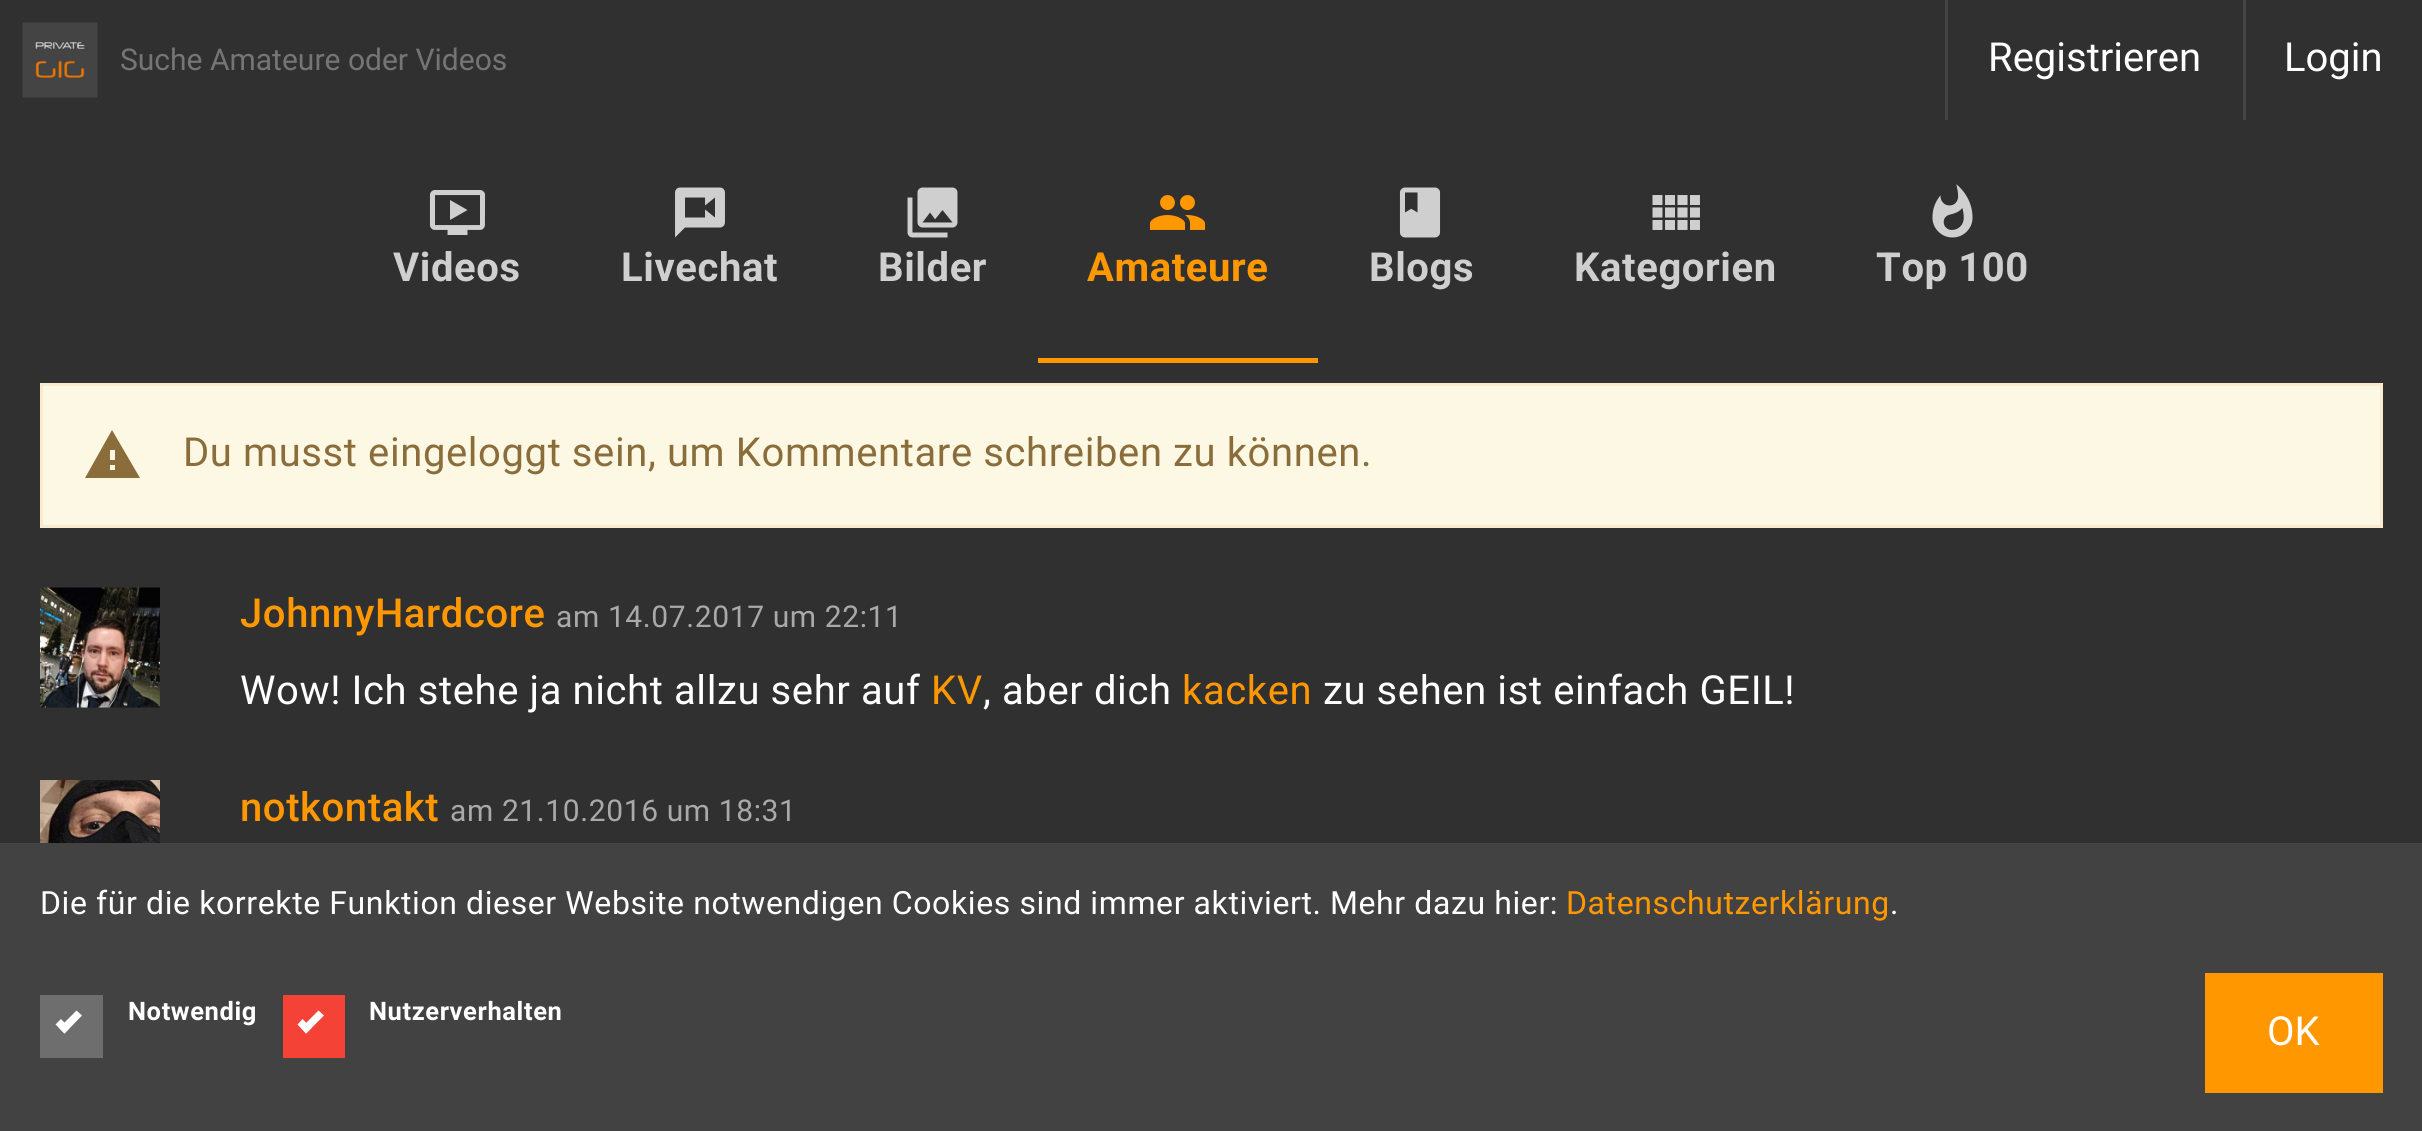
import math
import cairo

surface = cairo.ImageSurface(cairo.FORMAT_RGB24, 2422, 1131)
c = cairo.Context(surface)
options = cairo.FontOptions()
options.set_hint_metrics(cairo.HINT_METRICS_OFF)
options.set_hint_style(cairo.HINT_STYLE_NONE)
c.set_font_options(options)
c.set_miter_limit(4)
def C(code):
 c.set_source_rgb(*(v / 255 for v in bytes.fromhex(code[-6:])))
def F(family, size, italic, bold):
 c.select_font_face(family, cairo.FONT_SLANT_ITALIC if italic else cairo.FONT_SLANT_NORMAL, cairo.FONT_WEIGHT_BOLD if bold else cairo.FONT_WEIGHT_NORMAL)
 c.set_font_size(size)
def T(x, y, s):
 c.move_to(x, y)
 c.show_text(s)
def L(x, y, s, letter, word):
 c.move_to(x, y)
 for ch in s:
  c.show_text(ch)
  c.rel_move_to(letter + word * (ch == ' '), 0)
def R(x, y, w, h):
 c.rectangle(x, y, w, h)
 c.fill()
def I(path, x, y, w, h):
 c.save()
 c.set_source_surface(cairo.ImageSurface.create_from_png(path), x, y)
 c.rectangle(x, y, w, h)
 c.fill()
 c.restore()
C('303030')
c.paint()
I('1.png',22,22,76,76)
F('Roboto',30,0,0)
C('757575')
T(120,70,'Suche Amateure oder Videos')
C('444444')
R(1945,0,3,120)
F('Roboto',40,0,0)
C('ffffff')
T(1988,71,'Registrieren')
C('444444')
R(2243,0,3,120)
C('ffffff')
T(2284,71,'Login')
I('2.png',429,190,57,45)
F('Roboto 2',40,0,1)
C('cfcfcf')
L(393,281,'Videos',.6,0)
I('3.png',675,187,50,51)
L(621,281,'Livechat',.6,0)
I('4.png',907,187,51,51)
L(878,281,'Bilder',.6,0)
I('5.png',1149,195,57,35)
C('ff9800')
L(1087,281,'Amateure',.6,0)
R(1038,358,280,5)
I('6.png',1399,187,42,51)
C('cfcfcf')
L(1369,281,'Blogs',.6,0)
I('7.png',1652,195,48,35)
L(1574,281,'Kategorien',.6,0)
I('8.png',1932,184,41,54)
L(1876,281,'Top 100',.6,0)
C('fcf8e3')
c.rectangle(41.5,384.5,2340,142)
c.fill_preserve()
C('faebcc')
c.set_line_width(3)
c.stroke()
C('8a6d3b')
c.new_path()
c.move_to(115,460)
c.line_to(115,450)
c.line_to(110,450)
c.line_to(110,460)
c.close_path()
c.move_to(115,470)
c.line_to(115,465)
c.line_to(110,465)
c.line_to(110,470)
c.close_path()
c.move_to(85,478)
c.line_to(112,430)
c.line_to(140,478)
c.close_path()
c.fill()
F('Roboto',40,0,0)
L(183,466,'Du musst eingeloggt sein, um Kommentare schreiben zu können.',.6,0)
I('9.png',40,587,120,121)
F('Roboto Medium',40,0,0)
C('ff9800')
L(240,627,'JohnnyHardcore',.6,0)
F('Roboto',30,0,0)
C('a9a9a9')
L(556,627,'am 14.07.2017 um 22:11',.6,0)
F('Roboto',40,0,0)
C('ffffff')
L(240,704,'Wow! Ich stehe ja nicht allzu sehr auf',.6,0)
C('ff9800')
L(931,704,'KV',.6,0)
C('ffffff')
L(983,704,', aber dich',.6,0)
C('ff9800')
L(1182,704,'kacken',.6,0)
C('ffffff')
L(1323,704,'zu sehen ist einfach GEIL!',.6,0)
I('10.png',40,780,120,63)
F('Roboto Medium',40,0,0)
C('ff9800')
L(240,821,'notkontakt',.6,0)
F('Roboto',30,0,0)
C('a9a9a9')
L(450,821,'am 21.10.2016 um 18:31',.6,0)
C('424242')
R(0,843,2422,288)
F('Roboto',32,0,0)
C('ffffff')
L(40,914,'Die für die korrekte Funktion dieser Website notwendigen Cookies sind immer aktiviert.',.6,0)
L(1330,914,'Mehr dazu hier:',.6,0)
C('ff9800')
L(1566,914,'Datenschutzerklärung',.6,0)
C('ffffff')
L(1890,914,'.',.6,0)
C('6e6e6e')
R(40,995,63,63)
C('ffffff')
c.new_path()
c.move_to(76.5,1010.5)
c.line_to(82,1015.5)
c.line_to(64.5,1033.5)
c.line_to(59,1028)
c.close_path()
c.fill()
c.new_path()
c.move_to(61,1019)
c.line_to(69.5,1028)
c.line_to(64.5,1033.5)
c.line_to(55.5,1024.5)
c.close_path()
c.fill()
F('Roboto',25.5,0,1)
L(128,1020,'Notwendig',.6,0)
C('f44336')
R(283,995,62,63)
C('ffffff')
c.new_path()
c.move_to(318.5,1010.5)
c.line_to(324,1015.5)
c.line_to(306,1033.5)
c.line_to(301,1028)
c.close_path()
c.fill()
c.new_path()
c.move_to(302.5,1019)
c.line_to(311.5,1028)
c.line_to(306,1033.5)
c.line_to(297.5,1024.5)
c.close_path()
c.fill()
L(369,1020,'Nutzerverhalten',.6,0)
C('ff9800')
R(2205,973,178,120)
F('Roboto',40,0,0)
C('ffffff')
T(2267,1045,'OK')
surface.write_to_png('o.png')
